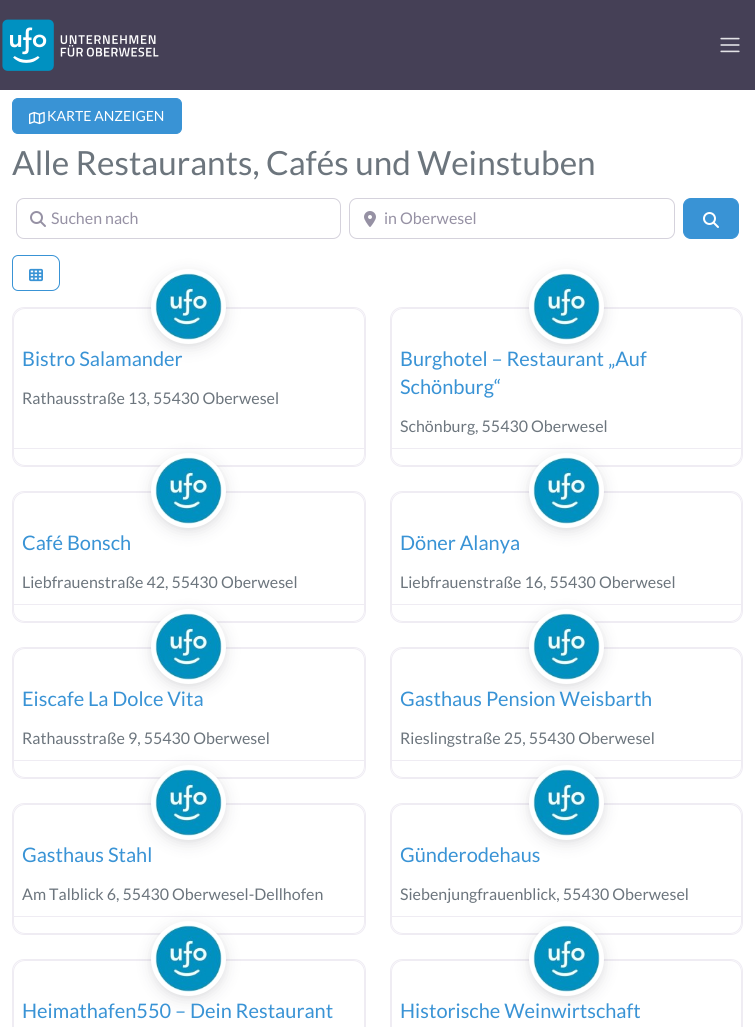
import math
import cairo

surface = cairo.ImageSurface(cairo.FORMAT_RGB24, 755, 1027)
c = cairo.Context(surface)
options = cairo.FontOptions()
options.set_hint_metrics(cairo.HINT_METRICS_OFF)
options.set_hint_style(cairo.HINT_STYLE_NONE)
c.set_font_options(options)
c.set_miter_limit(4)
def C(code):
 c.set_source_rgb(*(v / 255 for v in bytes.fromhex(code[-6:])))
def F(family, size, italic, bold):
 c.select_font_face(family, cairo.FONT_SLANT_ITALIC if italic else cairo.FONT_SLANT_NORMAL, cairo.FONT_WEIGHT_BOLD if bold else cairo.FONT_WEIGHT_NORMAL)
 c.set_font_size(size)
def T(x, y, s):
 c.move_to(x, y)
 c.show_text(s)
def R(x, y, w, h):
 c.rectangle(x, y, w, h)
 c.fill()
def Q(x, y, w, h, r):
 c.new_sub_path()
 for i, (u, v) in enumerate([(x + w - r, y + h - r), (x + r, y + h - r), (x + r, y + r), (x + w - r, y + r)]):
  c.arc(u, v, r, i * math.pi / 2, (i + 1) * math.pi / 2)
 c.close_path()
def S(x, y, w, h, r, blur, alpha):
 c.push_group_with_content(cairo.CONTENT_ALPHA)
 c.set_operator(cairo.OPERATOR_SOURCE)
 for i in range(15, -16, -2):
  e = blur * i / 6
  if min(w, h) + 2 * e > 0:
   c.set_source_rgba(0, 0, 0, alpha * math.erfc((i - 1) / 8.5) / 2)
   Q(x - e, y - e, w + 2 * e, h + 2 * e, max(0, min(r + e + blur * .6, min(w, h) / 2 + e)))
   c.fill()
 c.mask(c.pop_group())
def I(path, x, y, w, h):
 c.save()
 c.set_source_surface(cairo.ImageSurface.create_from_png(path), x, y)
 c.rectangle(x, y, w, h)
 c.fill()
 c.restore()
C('ffffff')
c.paint()
C('454056')
R(0,0,755,90)
I('1.png',2,19,157,52)
I('2.png',720,37,20,16)
C('3993d5')
Q(12.5,98.5,169,35,5.5)
c.fill_preserve()
c.set_line_width(1)
c.stroke()
I('3.png',29,111,16,14)
F('Lato',14,0,0)
C('ffffff')
T(47,121,'KARTE ANZEIGEN')
F('Lato',33.3,0,0)
C('6c757d')
T(12,175,'Alle Restaurants, Cafés und Weinstuben')
Q(16.5,198.5,324,40,7.5)
C('d5d2dc')
c.stroke()
I('4.png',30,211,16,16)
F('Lato',16,0,0)
C('9691a4')
T(51,224,'Suchen nach')
Q(349.5,198.5,325,40,7.5)
C('d5d2dc')
c.stroke()
I('5.png',364,211,12,16)
C('9691a4')
T(384,224,'in Oberwesel')
C('3993d5')
Q(683.5,198.5,55,40,7.5)
c.fill_preserve()
c.stroke()
I('6.png',703,212,16,16)
c.new_path()
c.move_to(18,255.5)
c.line_to(52,255.5)
c.curve_to(56,255.5,59.5,259,59.5,263)
c.line_to(59.5,283)
c.curve_to(59.5,287,56,290.5,52,290.5)
c.line_to(18,290.5)
c.curve_to(15,290.5,12.5,288,12.5,285)
c.line_to(12.5,261)
c.curve_to(12.5,258,15,255.5,18,255.5)
c.close_path()
c.stroke()
I('7.png',29,268,14,14)
Q(12.5,307.5,353,159,11.5)
C('efecf3')
c.stroke()
Q(13.5,308.5,351,157,11.5)
c.stroke()
F('Lato',20,0,0)
C('3993d5')
T(22,366,'Bistro Salamander')
C('1f1b2d')
S(151,273,75,75,37.5,8,.12)
S(155,275,67,67,33.5,4,.12)
C('ffffff')
c.arc(188.5,306.5,35.5,0,2 * math.pi)
c.fill_preserve()
c.set_line_width(4)
c.stroke()
I('8.png',155,273,67,67)
F('Lato',16,0,0)
C('6c757d')
T(22,404,'Rathausstraße 13, 55430 Oberwesel')
C('efecf3')
R(14,448,350,1)
Q(390.5,307.5,352,159,11.5)
c.set_line_width(1)
c.stroke()
Q(391.5,308.5,350,157,11.5)
c.stroke()
C('1f1b2d')
S(529,273,75,75,37.5,8,.12)
S(533,275,67,67,33.5,4,.12)
C('ffffff')
c.arc(566.5,306.5,35.5,0,2 * math.pi)
c.fill_preserve()
c.set_line_width(4)
c.stroke()
I('9.png',533,273,67,67)
F('Lato',20,0,0)
C('3993d5')
T(400,366,'Burghotel – Restaurant „Auf')
T(400,394,'Schönburg“')
F('Lato',16,0,0)
C('6c757d')
T(400,432,'Schönburg, 55430 Oberwesel')
C('efecf3')
R(392,448,349,1)
Q(12.5,491.5,353,131,11.5)
c.set_line_width(1)
c.stroke()
Q(13.5,492.5,351,129,11.5)
c.stroke()
F('Lato',20,0,0)
C('3993d5')
T(22,550,'Café Bonsch')
C('1f1b2d')
S(151,457,75,75,37.5,8,.12)
S(155,459,67,67,33.5,4,.12)
C('ffffff')
c.arc(188.5,490.5,35.5,0,2 * math.pi)
c.fill_preserve()
c.set_line_width(4)
c.stroke()
I('10.png',155,457,67,67)
F('Lato',16,0,0)
C('6c757d')
T(22,588,'Liebfrauenstraße 42, 55430 Oberwesel')
C('efecf3')
R(14,604,350,1)
Q(390.5,491.5,352,131,11.5)
c.set_line_width(1)
c.stroke()
Q(391.5,492.5,350,129,11.5)
c.stroke()
F('Lato',20,0,0)
C('3993d5')
T(400,550,'Döner Alanya')
C('1f1b2d')
S(529,457,75,75,37.5,8,.12)
S(533,459,67,67,33.5,4,.12)
C('ffffff')
c.arc(566.5,490.5,35.5,0,2 * math.pi)
c.fill_preserve()
c.set_line_width(4)
c.stroke()
I('11.png',533,457,67,67)
F('Lato',16,0,0)
C('6c757d')
T(400,588,'Liebfrauenstraße 16, 55430 Oberwesel')
C('efecf3')
R(392,604,349,1)
Q(12.5,647.5,353,131,11.5)
c.set_line_width(1)
c.stroke()
Q(13.5,648.5,351,129,11.5)
c.stroke()
C('1f1b2d')
S(151,613,75,75,37.5,8,.12)
S(155,615,67,67,33.5,4,.12)
C('ffffff')
c.arc(188.5,646.5,35.5,0,2 * math.pi)
c.fill_preserve()
c.set_line_width(4)
c.stroke()
I('12.png',155,613,67,67)
F('Lato',20,0,0)
C('3993d5')
T(22,706,'Eiscafe La Dolce Vita')
F('Lato',16,0,0)
C('6c757d')
T(22,744,'Rathausstraße 9, 55430 Oberwesel')
C('efecf3')
R(14,760,350,1)
Q(390.5,647.5,352,131,11.5)
c.set_line_width(1)
c.stroke()
Q(391.5,648.5,350,129,11.5)
c.stroke()
C('1f1b2d')
S(529,613,75,75,37.5,8,.12)
S(533,615,67,67,33.5,4,.12)
C('ffffff')
c.arc(566.5,646.5,35.5,0,2 * math.pi)
c.fill_preserve()
c.set_line_width(4)
c.stroke()
I('13.png',533,613,67,67)
F('Lato',20,0,0)
C('3993d5')
T(400,706,'Gasthaus Pension Weisbarth')
F('Lato',16,0,0)
C('6c757d')
T(400,744,'Rieslingstraße 25, 55430 Oberwesel')
C('efecf3')
R(392,760,349,1)
Q(12.5,803.5,353,131,11.5)
c.set_line_width(1)
c.stroke()
Q(13.5,804.5,351,129,11.5)
c.stroke()
F('Lato',20,0,0)
C('3993d5')
T(22,862,'Gasthaus Stahl')
C('1f1b2d')
S(151,769,75,75,37.5,8,.12)
S(155,771,67,67,33.5,4,.12)
C('ffffff')
c.arc(188.5,802.5,35.5,0,2 * math.pi)
c.fill_preserve()
c.set_line_width(4)
c.stroke()
I('12.png',155,769,67,67)
F('Lato',16,0,0)
C('6c757d')
T(22,900,'Am Talblick 6, 55430 Oberwesel-Dellhofen')
C('efecf3')
R(14,916,350,1)
Q(390.5,803.5,352,131,11.5)
c.set_line_width(1)
c.stroke()
Q(391.5,804.5,350,129,11.5)
c.stroke()
F('Lato',20,0,0)
C('3993d5')
T(400,862,'Günderodehaus')
C('1f1b2d')
S(529,769,75,75,37.5,8,.12)
S(533,771,67,67,33.5,4,.12)
C('ffffff')
c.arc(566.5,802.5,35.5,0,2 * math.pi)
c.fill_preserve()
c.set_line_width(4)
c.stroke()
I('13.png',533,769,67,67)
F('Lato',16,0,0)
C('6c757d')
T(400,900,'Siebenjungfrauenblick, 55430 Oberwesel')
C('efecf3')
R(392,916,349,1)
Q(12.5,959.5,353,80,11.5)
c.set_line_width(1)
c.stroke()
Q(13.5,960.5,351,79,11.5)
c.stroke()
C('1f1b2d')
S(151,925,75,75,37.5,8,.12)
S(155,927,67,67,33.5,4,.12)
C('ffffff')
c.arc(188.5,958.5,35.5,0,2 * math.pi)
c.fill_preserve()
c.set_line_width(4)
c.stroke()
I('12.png',155,925,67,67)
F('Lato',20,0,0)
C('3993d5')
T(22,1018,'Heimathafen550 – Dein Restaurant')
Q(390.5,959.5,352,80,11.5)
C('efecf3')
c.set_line_width(1)
c.stroke()
Q(391.5,960.5,350,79,11.5)
c.stroke()
C('1f1b2d')
S(529,925,75,75,37.5,8,.12)
S(533,927,67,67,33.5,4,.12)
C('ffffff')
c.arc(566.5,958.5,35.5,0,2 * math.pi)
c.fill_preserve()
c.set_line_width(4)
c.stroke()
I('13.png',533,925,67,67)
C('3993d5')
T(400,1018,'Historische Weinwirtschaft')
surface.write_to_png('o.png')
